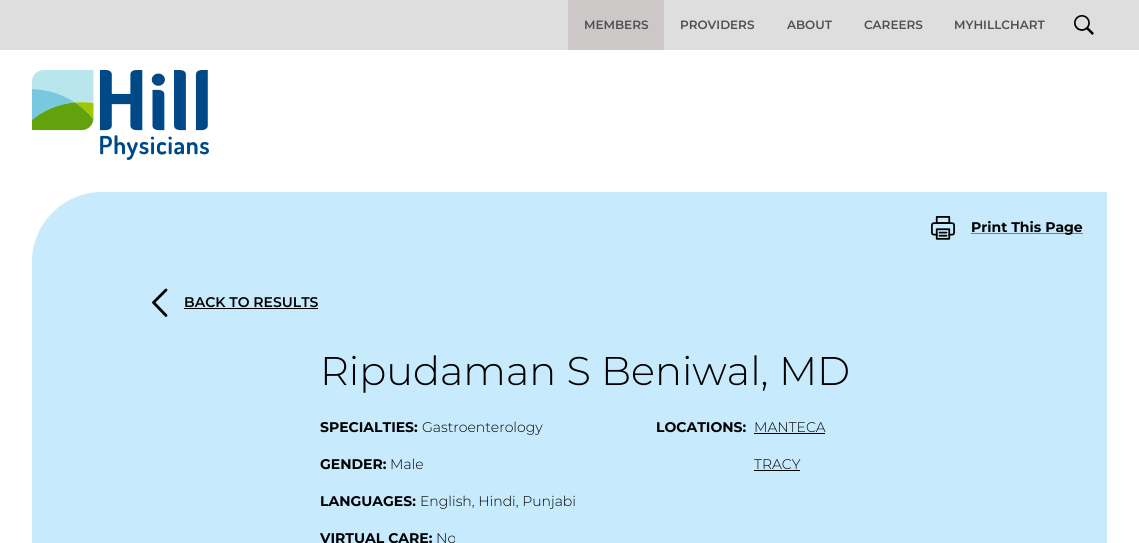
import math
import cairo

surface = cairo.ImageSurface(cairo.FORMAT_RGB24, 1139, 543)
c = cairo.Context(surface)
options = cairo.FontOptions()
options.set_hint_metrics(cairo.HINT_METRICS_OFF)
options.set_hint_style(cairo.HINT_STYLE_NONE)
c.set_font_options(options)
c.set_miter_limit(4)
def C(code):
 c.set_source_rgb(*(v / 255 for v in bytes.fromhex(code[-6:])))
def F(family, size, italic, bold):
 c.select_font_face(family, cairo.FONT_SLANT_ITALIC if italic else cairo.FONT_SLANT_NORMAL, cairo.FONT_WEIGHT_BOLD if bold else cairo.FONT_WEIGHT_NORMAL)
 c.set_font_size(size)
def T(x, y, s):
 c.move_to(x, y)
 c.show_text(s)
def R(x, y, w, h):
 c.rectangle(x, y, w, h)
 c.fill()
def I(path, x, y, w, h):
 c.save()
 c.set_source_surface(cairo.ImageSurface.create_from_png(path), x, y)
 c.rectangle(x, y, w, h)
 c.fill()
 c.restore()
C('ffffff')
c.paint()
C('dedede')
R(0,0,1139,50)
C('ccc8c8')
R(568,0,96,50)
F('Montserrat SemiBold',12,0,0)
C('4d4f53')
T(584,29,'MEMBERS')
T(680,29,'PROVIDERS')
T(787,29,'ABOUT')
T(864,29,'CAREERS')
T(954,29,'MYHILLCHART')
I('1.png',1074,15,20,20)
I('2.png',32,70,177,90)
C('c7eafc')
c.new_path()
c.move_to(102,192)
c.line_to(1107,192)
c.line_to(1107,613)
c.line_to(32,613)
c.line_to(32,262)
c.curve_to(32,223.5,63.5,192,102,192)
c.close_path()
c.fill()
I('3.png',931,216,24,24)
C('62a30d')
R(971,233,112,1)
F('Montserrat',14,0,1)
C('000000')
T(971,232,'Print This Page')
c.new_path()
c.move_to(166,290)
c.line_to(153.5,302.5)
c.line_to(166,315.5)
c.set_line_width(2.8)
c.set_line_cap(cairo.LINE_CAP_ROUND)
c.set_line_join(cairo.LINE_JOIN_ROUND)
c.stroke()
F('Montserrat SemiBold',14,0,0)
T(184,307,'BACK TO RESULTS')
R(184,308,134,1)
F('Montserrat Light',40,0,0)
T(320,385,'Ripudaman S Beniwal, MD')
F('Montserrat',14,0,1)
T(320,432,'SPECIALTIES:')
F('Montserrat Light',14,0,0)
T(422,432,'Gastroenterology')
F('Montserrat',14,0,1)
T(320,469,'GENDER:')
F('Montserrat Light',14,0,0)
T(390,469,'Male')
F('Montserrat',14,0,1)
T(320,506,'LANGUAGES:')
F('Montserrat Light',14,0,0)
T(420,506,'English, Hindi, Punjabi')
F('Montserrat',14,0,1)
T(320,543,'VIRTUAL CARE:')
F('Montserrat Light',14,0,0)
T(436,543,'No')
F('Montserrat',14,0,1)
T(656,432,'LOCATIONS:')
F('Montserrat Light',14,0,0)
T(754,432,'MANTECA')
R(754,433,71,1)
T(754,469,'TRACY')
R(754,470,46,1)
surface.write_to_png('o.png')
